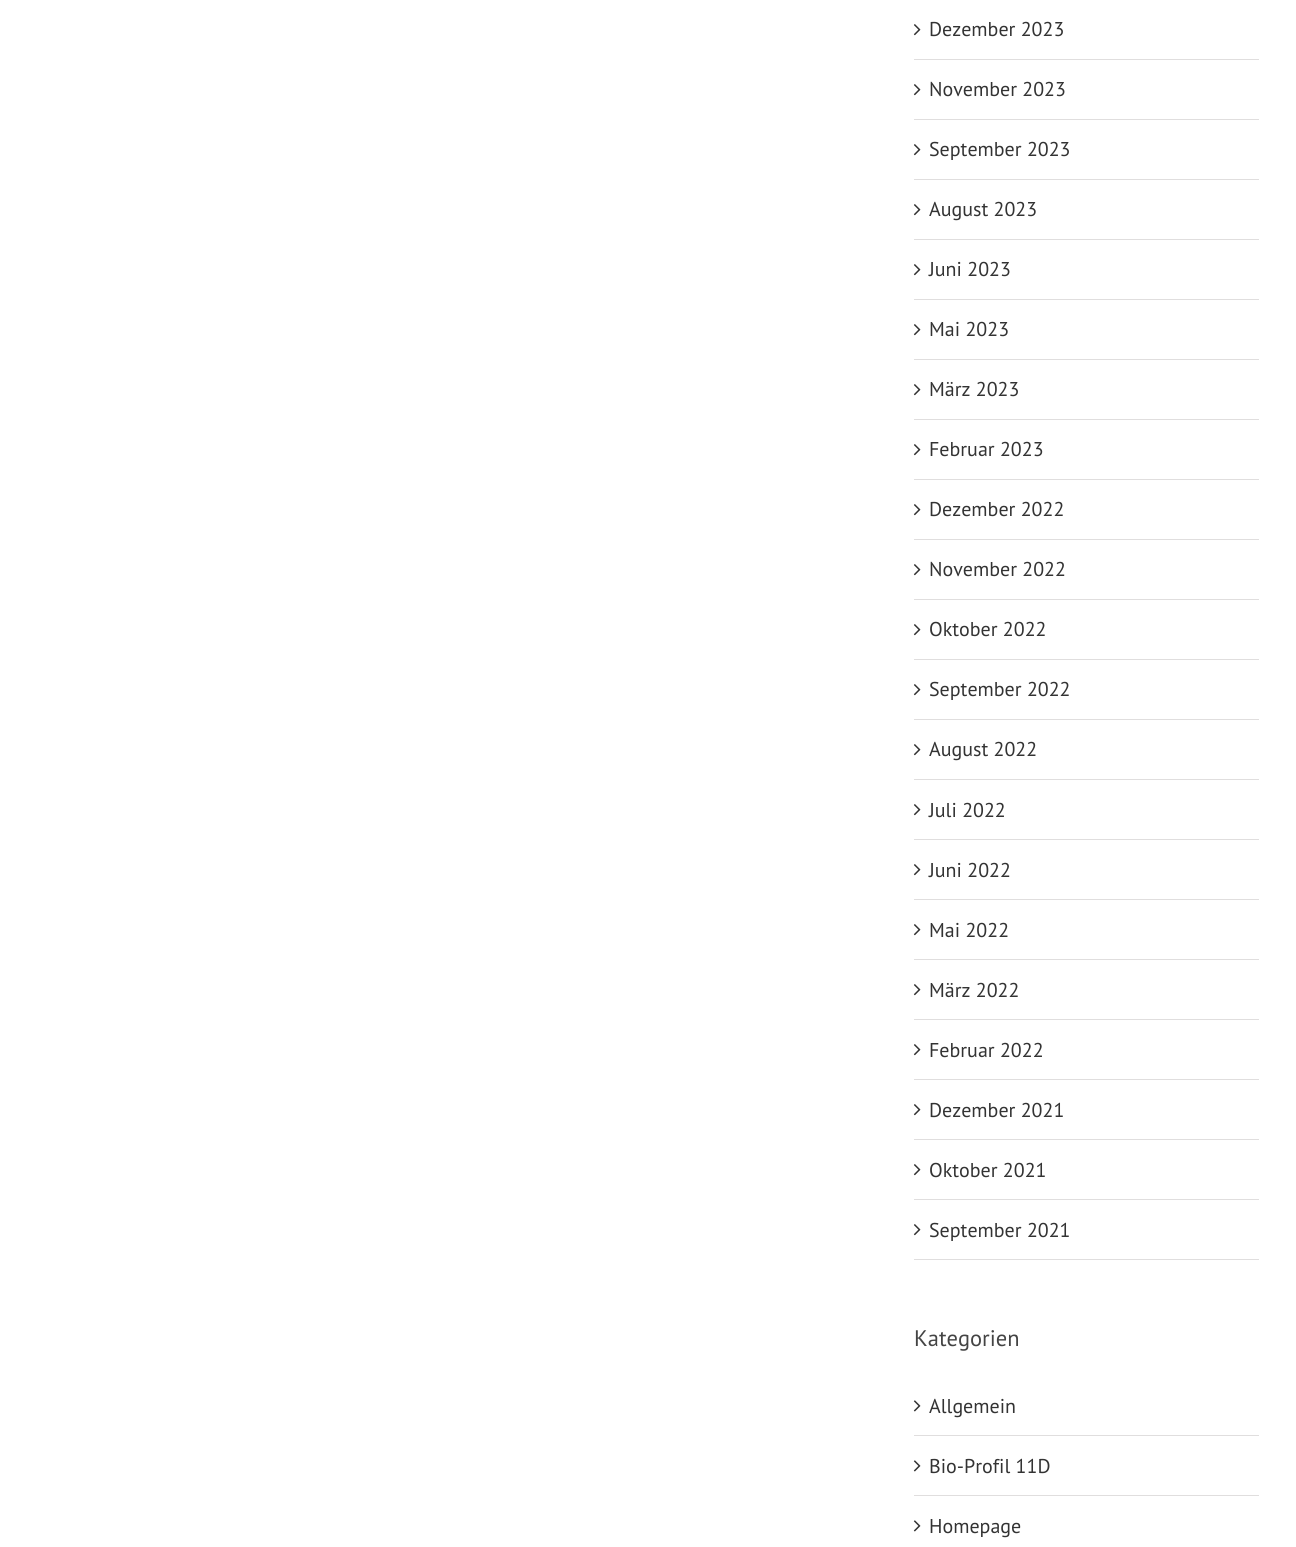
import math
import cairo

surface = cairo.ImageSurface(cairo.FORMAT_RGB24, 1296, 1547)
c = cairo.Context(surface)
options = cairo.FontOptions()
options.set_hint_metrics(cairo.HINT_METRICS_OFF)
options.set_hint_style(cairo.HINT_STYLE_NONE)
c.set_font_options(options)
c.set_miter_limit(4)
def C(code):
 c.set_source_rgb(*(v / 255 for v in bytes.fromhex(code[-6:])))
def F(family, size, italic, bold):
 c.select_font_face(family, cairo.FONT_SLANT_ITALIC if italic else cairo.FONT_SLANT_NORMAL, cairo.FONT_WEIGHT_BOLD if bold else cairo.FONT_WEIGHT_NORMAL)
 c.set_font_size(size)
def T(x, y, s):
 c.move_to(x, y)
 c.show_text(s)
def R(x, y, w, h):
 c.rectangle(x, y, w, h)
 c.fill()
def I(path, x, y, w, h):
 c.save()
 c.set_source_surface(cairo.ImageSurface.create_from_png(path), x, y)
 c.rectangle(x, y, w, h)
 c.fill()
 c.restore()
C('ffffff')
c.paint()
C('e0dede')
R(914,59,345,1)
I('1.png',913,24,8,12)
F('PT Sans',20,0,0)
C('333333')
T(929,36,'Dezember 2023')
C('e0dede')
R(914,119,345,1)
I('1.png',913,84,8,12)
C('333333')
T(929,96,'November 2023')
C('e0dede')
R(914,179,345,1)
I('1.png',913,144,8,12)
C('333333')
T(929,156,'September 2023')
C('e0dede')
R(914,239,345,1)
I('1.png',913,204,8,12)
C('333333')
T(929,216,'August 2023')
C('e0dede')
R(914,299,345,1)
I('1.png',913,264,8,12)
C('333333')
T(929,276,'Juni 2023')
C('e0dede')
R(914,359,345,1)
I('1.png',913,324,8,12)
C('333333')
T(929,336,'Mai 2023')
C('e0dede')
R(914,419,345,1)
I('1.png',913,384,8,12)
C('333333')
T(929,396,'März 2023')
C('e0dede')
R(914,479,345,1)
I('1.png',913,444,8,12)
C('333333')
T(929,456,'Februar 2023')
C('e0dede')
R(914,539,345,1)
I('1.png',913,504,8,12)
C('333333')
T(929,516,'Dezember 2022')
C('e0dede')
R(914,599,345,1)
I('1.png',913,564,8,12)
C('333333')
T(929,576,'November 2022')
C('e0dede')
R(914,659,345,1)
I('1.png',913,624,8,12)
C('333333')
T(929,636,'Oktober 2022')
C('e0dede')
R(914,719,345,1)
I('1.png',913,684,8,12)
C('333333')
T(929,696,'September 2022')
C('e0dede')
R(914,779,345,1)
I('1.png',913,744,8,12)
C('333333')
T(929,756,'August 2022')
C('e0dede')
R(914,839,345,1)
I('1.png',913,804,8,12)
C('333333')
T(929,817,'Juli 2022')
C('e0dede')
R(914,899,345,1)
I('1.png',913,864,8,12)
C('333333')
T(929,877,'Juni 2022')
C('e0dede')
R(914,959,345,1)
I('1.png',913,924,8,12)
C('333333')
T(929,937,'Mai 2022')
C('e0dede')
R(914,1019,345,1)
I('1.png',913,984,8,12)
C('333333')
T(929,997,'März 2022')
C('e0dede')
R(914,1079,345,1)
I('1.png',913,1044,8,12)
C('333333')
T(929,1057,'Februar 2022')
C('e0dede')
R(914,1139,345,1)
I('1.png',913,1104,8,12)
C('333333')
T(929,1117,'Dezember 2021')
C('e0dede')
R(914,1199,345,1)
I('1.png',913,1164,8,12)
C('333333')
T(929,1177,'Oktober 2021')
C('e0dede')
R(914,1259,345,1)
I('1.png',913,1224,8,12)
C('333333')
T(929,1237,'September 2021')
F('PT Sans',22.5,0,0)
C('444444')
T(914,1346,'Kategorien')
C('e0dede')
R(914,1435,345,1)
I('2.png',913,1400,8,12)
F('PT Sans',20,0,0)
C('333333')
T(929,1413,'Allgemein')
C('e0dede')
R(914,1495,345,1)
I('2.png',913,1460,8,12)
C('333333')
T(929,1473,'Bio-Profil 11D')
I('2.png',913,1520,8,12)
T(929,1533,'Homepage')
surface.write_to_png('o.png')
